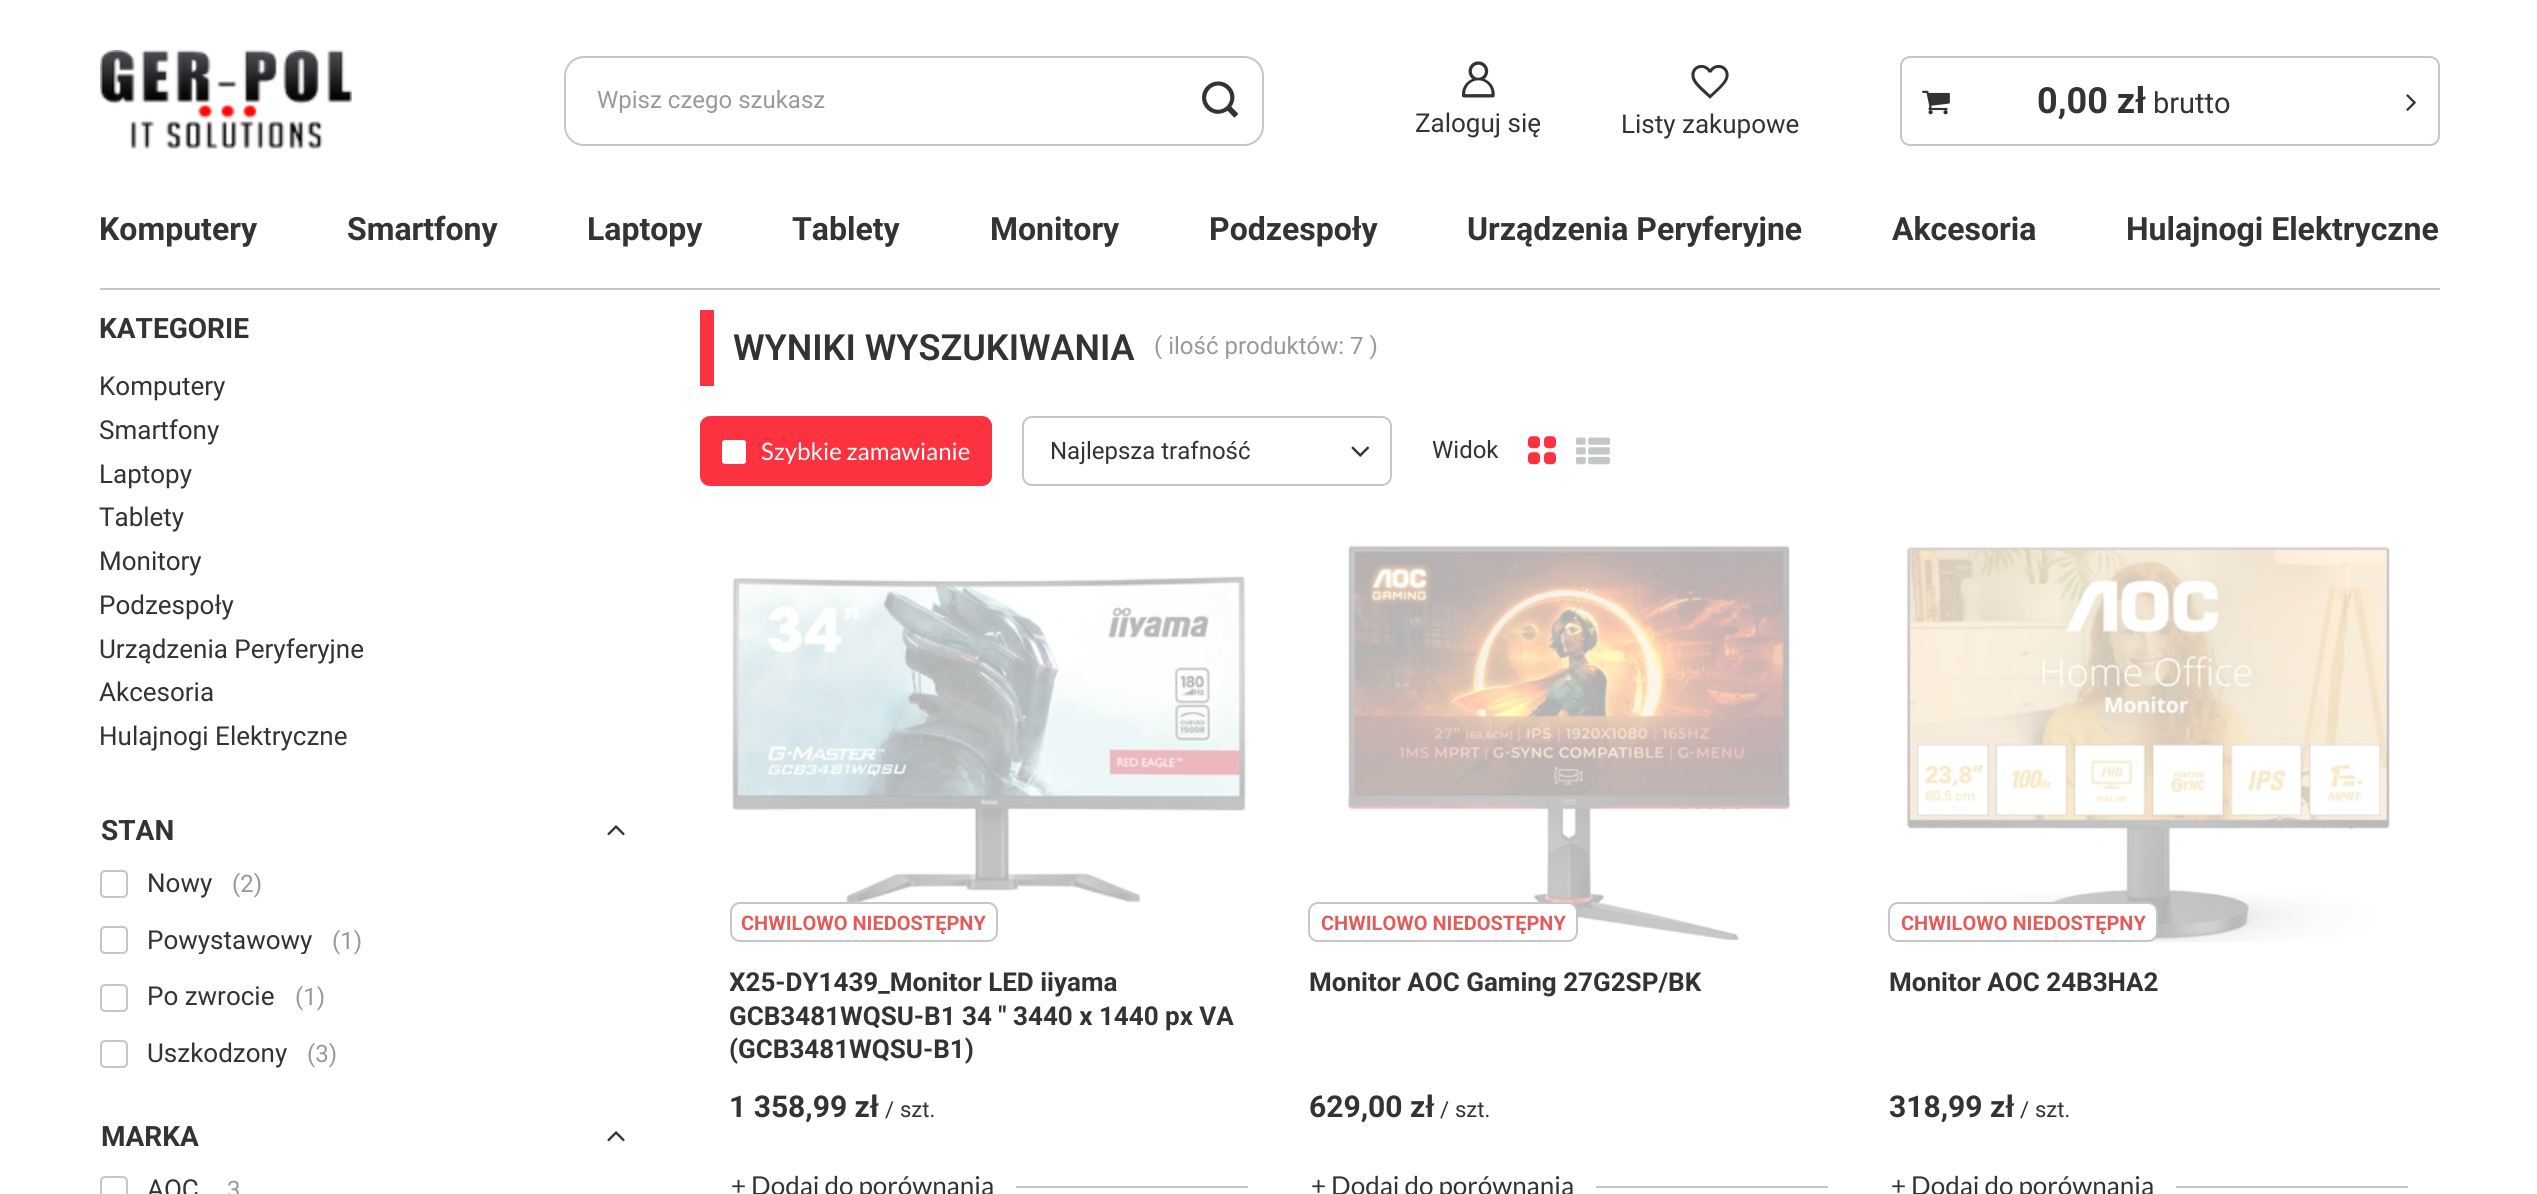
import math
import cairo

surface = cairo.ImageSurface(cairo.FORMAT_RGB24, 2537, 1194)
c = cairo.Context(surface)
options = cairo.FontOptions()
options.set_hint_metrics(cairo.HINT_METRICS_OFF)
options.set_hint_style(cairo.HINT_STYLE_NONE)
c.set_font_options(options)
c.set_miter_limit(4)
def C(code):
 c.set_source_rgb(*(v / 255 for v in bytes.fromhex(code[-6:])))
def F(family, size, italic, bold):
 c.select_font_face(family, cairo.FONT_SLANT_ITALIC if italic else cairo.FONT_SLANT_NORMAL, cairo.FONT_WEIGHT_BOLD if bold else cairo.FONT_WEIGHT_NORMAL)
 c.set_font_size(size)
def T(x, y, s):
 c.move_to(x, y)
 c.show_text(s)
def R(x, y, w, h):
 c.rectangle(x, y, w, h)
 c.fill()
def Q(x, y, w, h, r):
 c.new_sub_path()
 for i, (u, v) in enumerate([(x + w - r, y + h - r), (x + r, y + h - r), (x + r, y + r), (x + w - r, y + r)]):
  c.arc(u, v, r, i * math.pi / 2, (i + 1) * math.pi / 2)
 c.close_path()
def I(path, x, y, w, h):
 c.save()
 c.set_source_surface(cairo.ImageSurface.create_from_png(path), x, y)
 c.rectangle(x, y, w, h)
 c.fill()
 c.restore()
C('ffffff')
c.paint()
I('1.png',100,50,252,100)
Q(565,57,698,88,19)
C('c4c7c8')
c.stroke()
F('Roboto',24,0,0)
C('999999')
T(597,108,'Wpisz czego szukasz')
I('2.png',1202,81,36,37)
Q(1901,57,538,88,9)
C('c4c7c8')
c.stroke()
I('3.png',1922,90,28,25)
F('Roboto',36,0,1)
C('333333')
T(2037,113,'0,00 zł')
F('Roboto',29,0,0)
T(2153,113,'brutto')
I('4.png',2406,94,10,17)
I('5.png',1462,61,33,37)
F('Roboto',26,0,0)
T(1415,132,'Zaloguj się')
I('6.png',1691,64,38,35)
T(1621,133,'Listy zakupowe')
C('c4c7c8')
R(100,288,2340,2)
F('Roboto',32,0,1)
C('333333')
T(99,240,'Komputery')
T(347,240,'Smartfony')
T(587,240,'Laptopy')
T(792,240,'Tablety')
T(990,240,'Monitory')
T(1209,240,'Podzespoły')
T(1467,240,'Urządzenia Peryferyjne')
T(1892,240,'Akcesoria')
T(2126,240,'Hulajnogi Elektryczne')
F('Roboto',28,0,1)
T(99,338,'KATEGORIE')
F('Roboto',26,0,0)
T(99,395,'Komputery')
T(99,439,'Smartfony')
T(99,483,'Laptopy')
T(99,526,'Tablety')
T(99,570,'Monitory')
T(99,614,'Podzespoły')
T(99,658,'Urządzenia Peryferyjne')
T(99,701,'Akcesoria')
T(99,745,'Hulajnogi Elektryczne')
F('Roboto',28,0,1)
T(101,840,'STAN')
I('7.png',607,825,18,11)
Q(101,871,26,26,4)
C('c4c7c8')
c.stroke()
F('Roboto',26,0,0)
C('333333')
T(147,892,'Nowy')
F('Roboto',24,0,0)
C('999999')
T(232,892,'(2)')
Q(101,927,26,26,4)
C('c4c7c8')
c.stroke()
c.save()
c.rectangle(100,926,272,28)
c.clip()
F('Roboto',26,0,0)
C('333333')
T(147,949,'Powystawowy')
c.restore()
C('999999')
T(332,949,'(1)')
Q(101,985,26,26,4)
C('c4c7c8')
c.stroke()
F('Roboto',26,0,0)
C('333333')
T(147,1005,'Po zwrocie')
F('Roboto',24,0,0)
C('999999')
T(295,1005,'(1)')
Q(101,1041,26,26,4)
C('c4c7c8')
c.stroke()
F('Roboto',26,0,0)
C('333333')
T(147,1062,'Uszkodzony')
F('Roboto',24,0,0)
C('999999')
T(307,1062,'(3)')
F('Roboto',28,0,1)
C('333333')
T(101,1146,'MARKA')
I('7.png',607,1131,18,11)
Q(101,1177,26,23,4)
C('c4c7c8')
c.stroke()
F('Roboto',26,0,0)
C('333333')
T(147,1198,'AOC')
F('Roboto',24,0,0)
C('999999')
T(227,1198,'3')
C('fc3240')
R(700,310,14,76)
F('Roboto SemiBold',36,0,0)
C('333333')
T(733,360,'WYNIKI WYSZUKIWANIA')
F('Roboto',24,0,0)
C('999999')
T(1154,354,'( ilość produktów: 7 )')
C('fc3240')
Q(701,417,290,68,9)
c.fill_preserve()
c.stroke()
C('ffffff')
Q(721,439,26,26,4)
c.fill_preserve()
C('fc3240')
c.stroke()
F('Lato',24,0,0)
C('ffffff')
T(761,460,'Szybkie zamawianie')
Q(1023,417,368,68,9)
C('c4c7c8')
c.stroke()
F('Roboto',24,0,0)
C('333333')
T(1050,459,'Najlepsza trafność')
I('8.png',1351,446,19,11)
T(1432,458,'Widok')
I('9.png',1528,436,28,29)
I('10.png',1576,437,34,28)
I('11.png',732,576,514,327)
C('ffffff')
Q(731,903,266,38,9)
c.fill_preserve()
C('c4c7c8')
c.stroke()
F('Roboto',20,0,1)
C('e35c5c')
T(741,930,'CHWILOWO NIEDOSTĘPNY')
c.save()
c.rectangle(730,966,518,102)
c.clip()
F('Roboto',26,0,1)
C('333333')
T(729,991,'X25-DY1439_Monitor LED iiyama')
c.restore()
F('Roboto',26,0,1)
C('333333')
T(729,1025,'GCB3481WQSU-B1 34 " 3440 x 1440 px VA')
T(729,1058,'(GCB3481WQSU-B1)')
F('Roboto',30,0,1)
T(729,1117,'1 358,99 zł')
F('Roboto',22,0,0)
T(885,1117,'/')
T(900,1117,'szt.')
F('Lato',26,0,0)
T(731,1195,'+ Dodaj do porównania')
C('c4c7c8')
R(1016,1186,232,2)
I('12.png',1347,545,444,396)
C('ffffff')
Q(1309,903,268,38,9)
c.fill_preserve()
C('c4c7c8')
c.stroke()
F('Roboto',20,0,1)
C('e35c5c')
T(1321,930,'CHWILOWO NIEDOSTĘPNY')
F('Roboto',26,0,1)
C('333333')
T(1309,991,'Monitor AOC Gaming 27G2SP/BK')
F('Roboto',30,0,1)
T(1309,1117,'629,00 zł')
F('Roboto',22,0,0)
T(1440,1117,'/')
T(1455,1117,'szt.')
F('Lato',26,0,0)
T(1311,1195,'+ Dodaj do porównania')
C('c4c7c8')
R(1596,1186,232,2)
I('13.png',1906,546,484,396)
C('ffffff')
Q(1889,903,268,38,9)
c.fill_preserve()
C('c4c7c8')
c.stroke()
F('Roboto',20,0,1)
C('e35c5c')
T(1901,930,'CHWILOWO NIEDOSTĘPNY')
F('Roboto',26,0,1)
C('333333')
T(1889,991,'Monitor AOC 24B3HA2')
F('Roboto',30,0,1)
T(1889,1117,'318,99 zł')
F('Roboto',22,0,0)
T(2020,1117,'/')
T(2035,1117,'szt.')
F('Lato',26,0,0)
T(1891,1195,'+ Dodaj do porównania')
C('c4c7c8')
R(2176,1186,232,2)
surface.write_to_png('o.png')
